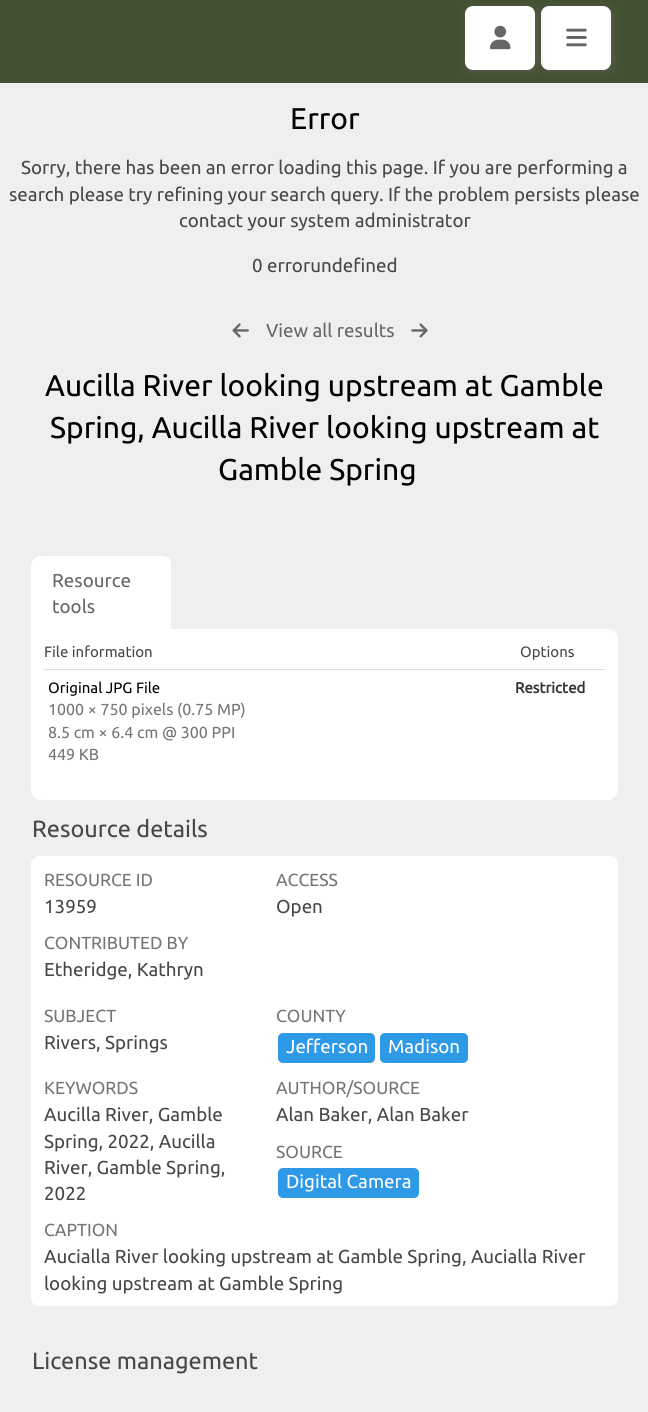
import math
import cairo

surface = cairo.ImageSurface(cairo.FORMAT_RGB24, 648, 1412)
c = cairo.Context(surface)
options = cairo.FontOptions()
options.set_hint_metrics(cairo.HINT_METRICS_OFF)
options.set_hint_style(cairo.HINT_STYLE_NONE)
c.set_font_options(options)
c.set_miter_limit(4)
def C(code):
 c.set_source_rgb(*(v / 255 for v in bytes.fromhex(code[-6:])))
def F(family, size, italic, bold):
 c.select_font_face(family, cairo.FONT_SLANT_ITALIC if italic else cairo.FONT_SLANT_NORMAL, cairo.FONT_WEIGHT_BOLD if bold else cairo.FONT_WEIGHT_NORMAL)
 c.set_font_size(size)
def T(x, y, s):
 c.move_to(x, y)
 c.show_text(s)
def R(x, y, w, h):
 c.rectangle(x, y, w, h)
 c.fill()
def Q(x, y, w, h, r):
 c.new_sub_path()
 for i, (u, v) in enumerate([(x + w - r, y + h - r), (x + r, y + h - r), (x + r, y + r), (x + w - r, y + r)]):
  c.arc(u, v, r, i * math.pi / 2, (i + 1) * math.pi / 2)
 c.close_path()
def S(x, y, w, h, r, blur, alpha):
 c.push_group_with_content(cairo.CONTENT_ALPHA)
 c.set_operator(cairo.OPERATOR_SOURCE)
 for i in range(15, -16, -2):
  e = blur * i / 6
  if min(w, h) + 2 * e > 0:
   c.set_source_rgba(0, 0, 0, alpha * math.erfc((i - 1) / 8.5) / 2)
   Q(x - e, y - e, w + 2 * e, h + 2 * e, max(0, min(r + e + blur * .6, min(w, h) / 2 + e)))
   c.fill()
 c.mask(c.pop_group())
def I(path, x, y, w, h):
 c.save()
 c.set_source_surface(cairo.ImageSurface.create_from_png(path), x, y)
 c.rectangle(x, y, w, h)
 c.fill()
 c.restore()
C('efefef')
c.paint()
C('435132')
R(0,0,648,83)
C('666666')
S(545,10,65,59,5,5,1)
C('ffffff')
Q(541,6,70,64,8)
c.fill()
C('666666')
S(469,10,65,59,5,5,1)
C('ffffff')
Q(465,6,70,64,8)
c.fill()
I('1.png',490,25,21,25)
I('2.png',566,28,21,19)
F('Ubuntu',30,0,0)
C('000000')
T(290,129,'Error')
F('Ubuntu',18.75,0,0)
C('474747')
T(21,174,'Sorry, there has been an error loading this page. If you are performing a')
T(9,201,'search please try refining your search query. If the problem persists please')
T(179,227,'contact your system administrator')
T(252,272,'0 errorundefined')
I('3.png',232,323,17,15)
C('666666')
T(266,337,'View all results')
I('4.png',411,323,17,15)
F('Ubuntu',30,0,0)
C('000000')
T(45,396,'Aucilla River looking upstream at Gamble')
T(50,438,'Spring, Aucilla River looking upstream at')
T(218,480,'Gamble Spring')
C('ffffff')
c.new_path()
c.move_to(41,556)
c.line_to(163,556)
c.curve_to(167.5,556,171,559.5,171,564)
c.line_to(171,630)
c.line_to(31,630)
c.line_to(31,566)
c.curve_to(31,560.5,35.5,556,41,556)
c.close_path()
c.fill()
F('Ubuntu',18.75,0,0)
C('666666')
T(52,587,'Resource')
T(52,613,'tools')
C('ffffff')
c.new_path()
c.move_to(31,629)
c.line_to(608,629)
c.curve_to(613.5,629,618,633.5,618,639)
c.line_to(618,790)
c.curve_to(618,795.5,613.5,800,608,800)
c.line_to(41,800)
c.curve_to(35.5,800,31,795.5,31,790)
c.close_path()
c.fill()
F('Ubuntu',15,0,0)
C('474747')
T(44,657,'File information')
T(520,657,'Options')
C('dddddd')
R(44,669,561,1)
C('000000')
T(48,693,'Original JPG File')
F('Ubuntu',16,0,0)
C('757575')
T(48,715,'1000 × 750 pixels (0.75 MP)')
T(48,738,'8.5 cm × 6.4 cm @ 300 PPI')
T(48,760,'449 KB')
F('Ubuntu',15,0,1)
C('333333')
T(515,693,'Restricted')
F('Ubuntu',23.5,0,0)
C('474747')
T(32,837,'Resource details')
C('ffffff')
Q(31,856,587,450,8)
c.fill()
F('Ubuntu',17.5,0,0)
C('757575')
T(44,886,'RESOURCE ID')
F('Ubuntu',18.75,0,0)
C('474747')
T(44,913,'13959')
F('Ubuntu',17.5,0,0)
C('757575')
T(276,886,'ACCESS')
F('Ubuntu',18.75,0,0)
C('474747')
T(276,913,'Open')
F('Ubuntu',17.5,0,0)
C('757575')
T(44,949,'CONTRIBUTED BY')
F('Ubuntu',18.75,0,0)
C('474747')
T(44,976,'Etheridge, Kathryn')
F('Ubuntu',17.5,0,0)
C('757575')
T(44,1022,'SUBJECT')
F('Ubuntu',18.75,0,0)
C('474747')
T(44,1049,'Rivers, Springs')
F('Ubuntu',17.5,0,0)
C('757575')
T(276,1022,'COUNTY')
C('2e99e6')
Q(278,1033,97,30,5)
c.fill()
F('Ubuntu',18.75,0,0)
C('ffffff')
T(286,1053,'Jefferson')
C('2e99e6')
Q(380,1033,88,30,5)
c.fill()
C('ffffff')
T(388,1053,'Madison')
F('Ubuntu',17.5,0,0)
C('757575')
T(44,1094,'KEYWORDS')
F('Ubuntu',18.75,0,0)
C('474747')
T(44,1121,'Aucilla River, Gamble')
T(44,1148,'Spring, 2022, Aucilla')
T(44,1174,'River, Gamble Spring,')
T(44,1200,'2022')
F('Ubuntu',17.5,0,0)
C('757575')
T(276,1094,'AUTHOR/SOURCE')
F('Ubuntu',18.75,0,0)
C('474747')
T(276,1121,'Alan Baker, Alan Baker')
F('Ubuntu',17.5,0,0)
C('757575')
T(276,1158,'SOURCE')
C('2e99e6')
Q(278,1168,141,30,5)
c.fill()
F('Ubuntu',18.75,0,0)
C('ffffff')
T(286,1188,'Digital Camera')
F('Ubuntu',17.5,0,0)
C('757575')
T(44,1236,'CAPTION')
F('Ubuntu',18.75,0,0)
C('474747')
T(44,1263,'Aucialla River looking upstream at Gamble Spring, Aucialla River')
T(44,1290,'looking upstream at Gamble Spring')
F('Ubuntu',23.5,0,0)
T(32,1369,'License management')
surface.write_to_png('o.png')
